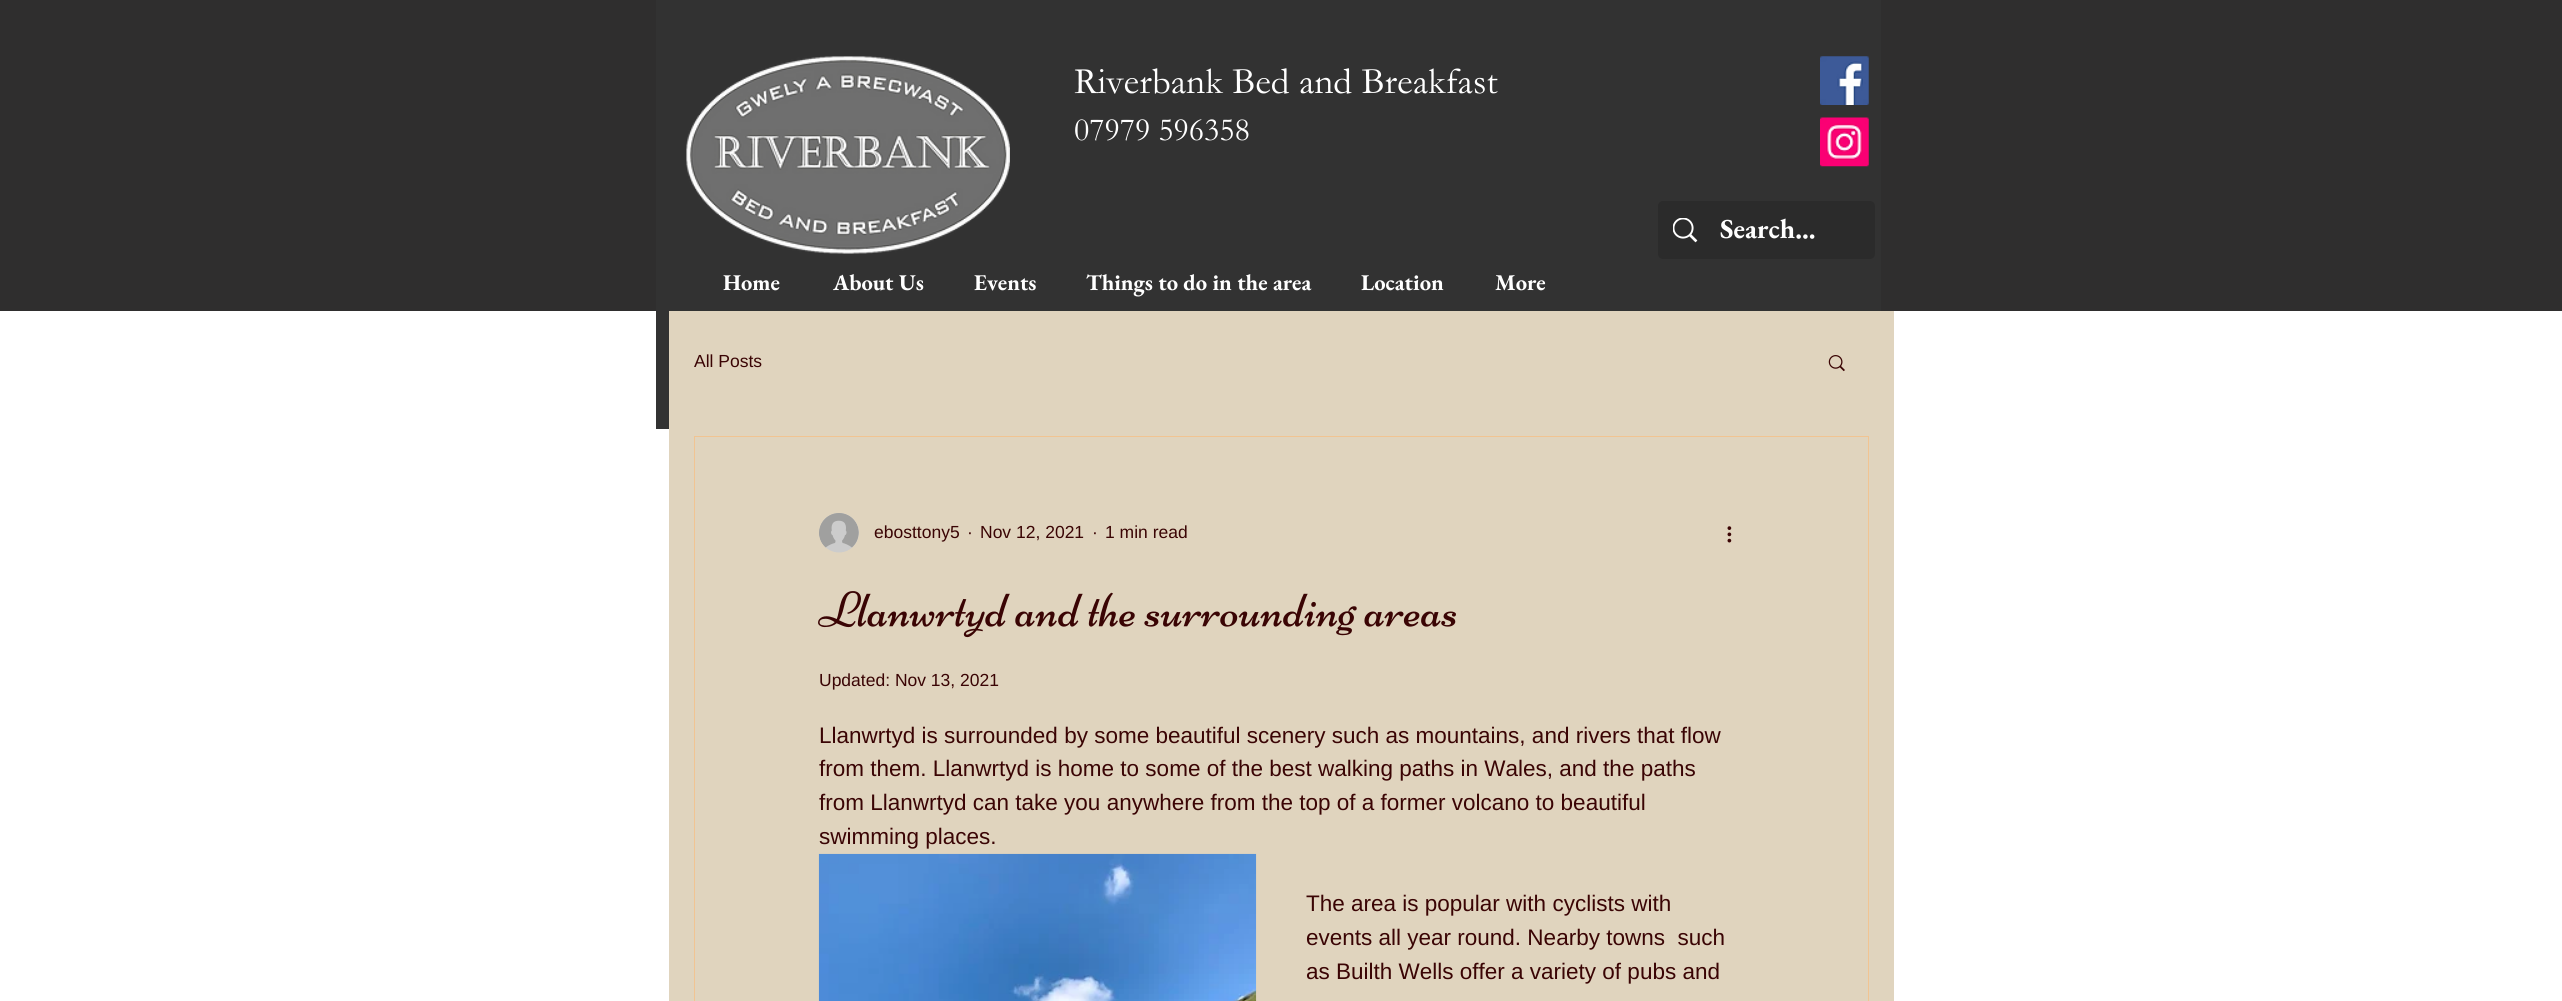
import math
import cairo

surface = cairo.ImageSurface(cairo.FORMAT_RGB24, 2562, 1001)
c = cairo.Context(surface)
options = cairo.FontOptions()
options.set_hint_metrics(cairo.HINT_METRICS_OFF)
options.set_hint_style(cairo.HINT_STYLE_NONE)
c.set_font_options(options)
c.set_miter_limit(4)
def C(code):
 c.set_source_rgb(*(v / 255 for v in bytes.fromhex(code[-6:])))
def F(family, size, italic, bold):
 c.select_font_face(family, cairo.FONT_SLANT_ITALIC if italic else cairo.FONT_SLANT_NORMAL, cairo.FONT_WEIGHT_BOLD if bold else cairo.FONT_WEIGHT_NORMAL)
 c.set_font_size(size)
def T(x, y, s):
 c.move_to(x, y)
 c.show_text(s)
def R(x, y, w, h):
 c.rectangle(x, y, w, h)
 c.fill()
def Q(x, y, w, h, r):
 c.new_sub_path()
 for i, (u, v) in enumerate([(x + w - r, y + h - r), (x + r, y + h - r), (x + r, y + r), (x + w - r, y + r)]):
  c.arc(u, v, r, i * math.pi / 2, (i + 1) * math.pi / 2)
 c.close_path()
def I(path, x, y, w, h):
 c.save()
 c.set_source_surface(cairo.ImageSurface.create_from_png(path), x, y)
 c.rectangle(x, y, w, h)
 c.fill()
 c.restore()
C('ffffff')
c.paint()
C('2f2e2e')
R(0,0,2562,311)
C('323232')
R(656,0,1225,429)
I('1.png',686,56,324,198)
F('Garamond',37.5,0,0)
C('ffffff')
T(1074,93,'Riverbank Bed and Breakfast')
F('Garamond',32.5,0,0)
T(1074,140,'07979 596358')
I('2.png',1820,56,49,49)
I('3.png',1820,117,49,50)
C('2b2b2b')
Q(1658,201,217,58,5)
c.fill()
I('4.png',1673,218,25,25)
F('EB Garamond',27.5,0,1)
C('ffffff')
T(1720,238,'Search...')
F('EB Garamond',22.5,0,1)
T(723,290,'Home')
T(833,290,'About Us')
T(974,290,'Events')
T(1086,290,'Things to do in the area')
T(1361,290,'Location')
T(1495,290,'More')
C('e0d4be')
R(669,311,1225,690)
F('Liberation Sans',17.5,0,0)
C('3a0404')
T(694,367,'All Posts')
I('5.png',1828,355,17,17)
c.rectangle(694.5,436.5,1174,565)
C('f1c492')
c.set_line_width(1)
c.stroke()
I('6.png',819,513,40,40)
C('3a0404')
T(874,538,'ebosttony5')
T(967,538,'·')
T(980,538,'Nov 12, 2021')
T(1092,538,'·')
T(1105,538,'1 min read')
I('7.png',1727,526,5,17)
I('8.png',818,591,638,47)
T(819,686,'Updated: Nov 13, 2021')
F('Liberation Sans',22.5,0,0)
T(819,743,'Llanwrtyd is surrounded by some beautiful scenery such as mountains, and rivers that flow')
T(819,776,'from them. Llanwrtyd is home to some of the best walking paths in Wales, and the paths')
T(819,810,'from Llanwrtyd can take you anywhere from the top of a former volcano to beautiful')
T(819,844,'swimming places.')
I('9.png',818,853,439,148)
T(1306,911,'The area is popular with cyclists with')
T(1306,945,'events all year round. Nearby towns  such')
T(1306,979,'as Builth Wells offer a variety of pubs and')
surface.write_to_png('o.png')
